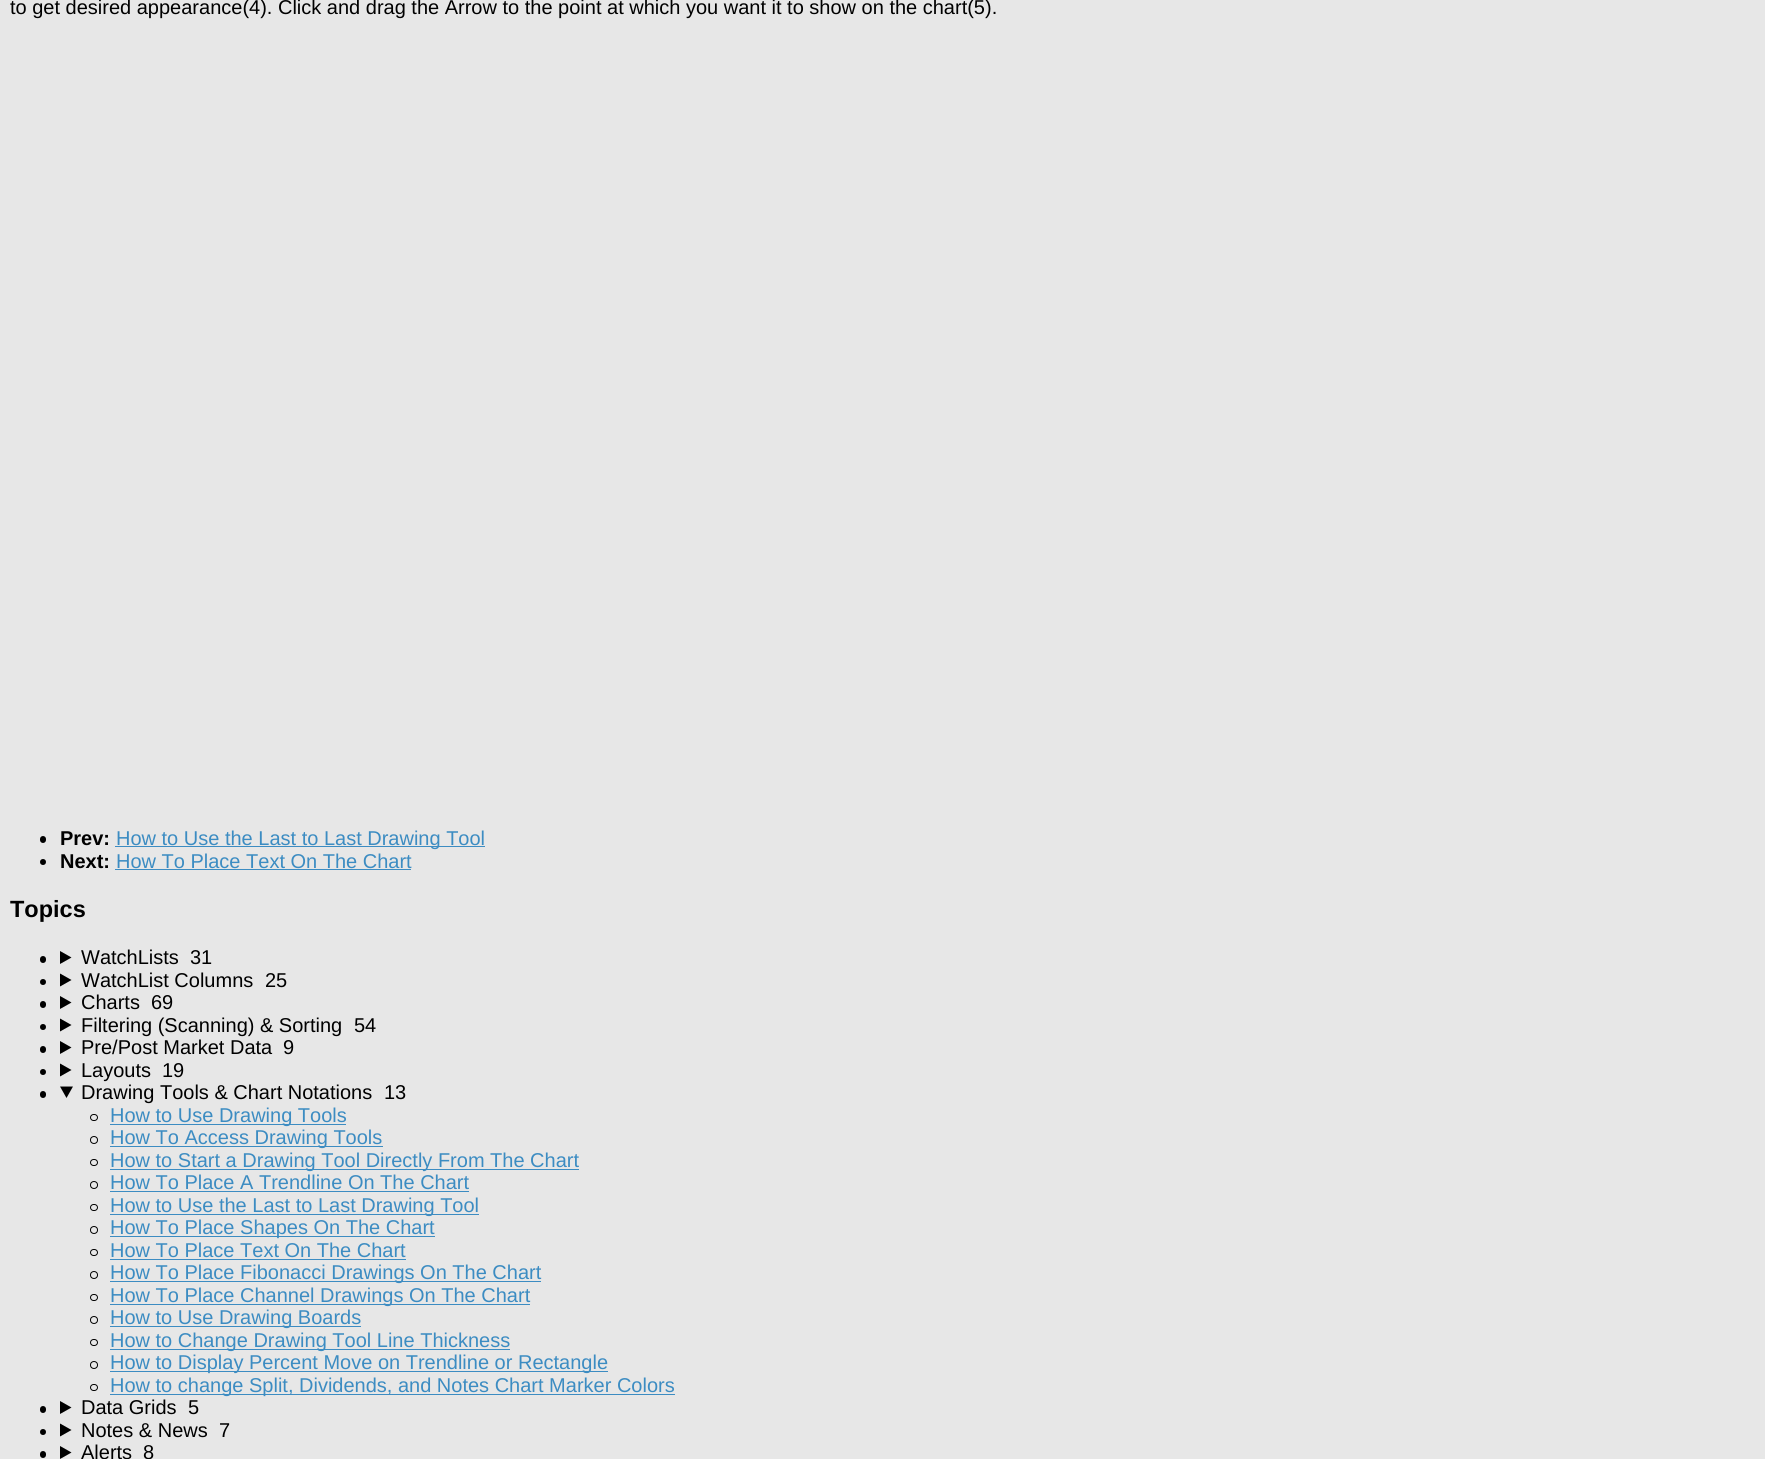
import math
import cairo

surface = cairo.ImageSurface(cairo.FORMAT_RGB24, 1765, 1459)
c = cairo.Context(surface)
options = cairo.FontOptions()
options.set_hint_metrics(cairo.HINT_METRICS_OFF)
options.set_hint_style(cairo.HINT_STYLE_NONE)
c.set_font_options(options)
c.set_miter_limit(4)
def C(code):
 c.set_source_rgb(*(v / 255 for v in bytes.fromhex(code[-6:])))
def F(family, size, italic, bold):
 c.select_font_face(family, cairo.FONT_SLANT_ITALIC if italic else cairo.FONT_SLANT_NORMAL, cairo.FONT_WEIGHT_BOLD if bold else cairo.FONT_WEIGHT_NORMAL)
 c.set_font_size(size)
def T(x, y, s):
 c.move_to(x, y)
 c.show_text(s)
def R(x, y, w, h):
 c.rectangle(x, y, w, h)
 c.fill()
def Q(x, y, w, h, r):
 c.new_sub_path()
 for i, (u, v) in enumerate([(x + w - r, y + h - r), (x + r, y + h - r), (x + r, y + r), (x + w - r, y + r)]):
  c.arc(u, v, r, i * math.pi / 2, (i + 1) * math.pi / 2)
 c.close_path()
C('e7e7e7')
c.paint()
F('Liberation Sans',20,0,0)
C('000000')
T(10,14,'to get desired appearance(4). Click and drag the Arrow to the point at which you want it to show on the chart(5).')
Q(40,836,6,7,3)
c.fill()
F('Liberation Sans',20,0,1)
T(60,845,'Prev:')
C('3c8cc2')
R(115,846,370,1)
F('Liberation Sans',20,0,0)
T(116,845,'How to Use the Last to Last Drawing Tool')
C('000000')
c.new_path()
c.arc(43,862,3,0,2 * math.pi)
c.fill()
F('Liberation Sans',20,0,1)
T(60,868,'Next:')
F('Liberation Sans',20,0,0)
C('3c8cc2')
T(116,868,'How To Place Text On The Chart')
R(115,869,296,1)
F('Liberation Sans',23.5,0,1)
C('000000')
T(10,917,'Topics')
Q(40,956,6,7,3)
c.fill()
c.new_path()
c.move_to(60,951)
c.line_to(71.5,957.5)
c.line_to(60,964)
c.close_path()
c.fill()
F('Liberation Sans',20,0,0)
T(81,964,'WatchLists')
T(190,964,'31')
c.new_path()
c.arc(43,982,3,0,2 * math.pi)
c.fill()
c.new_path()
c.move_to(60,973.5)
c.line_to(71.5,980)
c.line_to(60,986.5)
c.close_path()
c.fill()
T(81,987,'WatchList Columns')
T(265,987,'25')
Q(40,1001,6,7,3)
c.fill()
c.new_path()
c.move_to(60,996)
c.line_to(71.5,1002.5)
c.line_to(60,1009)
c.close_path()
c.fill()
T(81,1009,'Charts')
T(151,1009,'69')
c.new_path()
c.arc(43,1027,3,0,2 * math.pi)
c.fill()
c.new_path()
c.move_to(60,1018.5)
c.line_to(71.5,1025)
c.line_to(60,1031.5)
c.close_path()
c.fill()
T(81,1032,'Filtering (Scanning) & Sorting')
T(354,1032,'54')
Q(40,1046,6,7,3)
c.fill()
c.new_path()
c.move_to(60,1041)
c.line_to(71.5,1047.5)
c.line_to(60,1054)
c.close_path()
c.fill()
T(81,1054,'Pre/Post Market Data')
T(283,1054,'9')
c.new_path()
c.arc(43,1072,3,0,2 * math.pi)
c.fill()
c.new_path()
c.move_to(60,1063.5)
c.line_to(71.5,1070)
c.line_to(60,1076.5)
c.close_path()
c.fill()
T(81,1077,'Layouts')
T(162,1077,'19')
Q(40,1091,6,7,3)
c.fill()
c.new_path()
c.move_to(60,1086.5)
c.line_to(73,1086.5)
c.line_to(66.5,1098)
c.close_path()
c.fill()
T(81,1099,'Drawing Tools & Chart Notations')
T(384,1099,'13')
Q(90.5,1114.5,7,6,3)
c.set_line_width(1)
c.stroke()
C('3c8cc2')
R(110,1124,236,1)
T(110,1122,'How to Use Drawing Tools')
c.new_path()
c.arc(94,1140,3.5,0,2 * math.pi)
C('000000')
c.stroke()
C('3c8cc2')
R(110,1146,273,1)
T(110,1144,'How To Access Drawing Tools')
Q(90.5,1159.5,7,6,3)
C('000000')
c.stroke()
C('3c8cc2')
R(110,1169,469,1)
T(110,1167,'How to Start a Drawing Tool Directly From The Chart')
c.new_path()
c.arc(94,1185,3.5,0,2 * math.pi)
C('000000')
c.stroke()
C('3c8cc2')
T(110,1189,'How To Place A Trendline On The Chart')
R(110,1191,359,1)
Q(90.5,1204.5,7,6,3)
C('000000')
c.stroke()
C('3c8cc2')
R(110,1214,369,1)
T(110,1212,'How to Use the Last to Last Drawing Tool')
c.new_path()
c.arc(94,1230,3.5,0,2 * math.pi)
C('000000')
c.stroke()
C('3c8cc2')
R(110,1236,325,1)
T(110,1234,'How To Place Shapes On The Chart')
Q(90.5,1249.5,7,6,3)
C('000000')
c.stroke()
C('3c8cc2')
T(110,1257,'How To Place Text On The Chart')
R(110,1259,296,1)
c.new_path()
c.arc(94,1275,3.5,0,2 * math.pi)
C('000000')
c.stroke()
C('3c8cc2')
R(110,1281,431,1)
T(110,1279,'How To Place Fibonacci Drawings On The Chart')
Q(90.5,1294.5,7,6,3)
C('000000')
c.stroke()
C('3c8cc2')
R(110,1304,420,1)
T(110,1302,'How To Place Channel Drawings On The Chart')
c.new_path()
c.arc(94,1320,3.5,0,2 * math.pi)
C('000000')
c.stroke()
C('3c8cc2')
R(110,1326,251,1)
T(110,1324,'How to Use Drawing Boards')
Q(90.5,1339.5,7,6,3)
C('000000')
c.stroke()
C('3c8cc2')
R(110,1349,400,1)
T(110,1347,'How to Change Drawing Tool Line Thickness')
c.new_path()
c.arc(94,1365,3.5,0,2 * math.pi)
C('000000')
c.stroke()
C('3c8cc2')
R(110,1371,498,1)
T(110,1369,'How to Display Percent Move on Trendline or Rectangle')
Q(90.5,1384.5,7,6,3)
C('000000')
c.stroke()
C('3c8cc2')
R(110,1394,565,1)
T(110,1392,'How to change Split, Dividends, and Notes Chart Marker Colors')
C('000000')
Q(40,1406,6,7,3)
c.fill()
c.new_path()
c.move_to(60,1401)
c.line_to(71.5,1407.5)
c.line_to(60,1414)
c.close_path()
c.fill()
T(81,1414,'Data Grids')
T(188,1414,'5')
c.new_path()
c.arc(43,1432,3,0,2 * math.pi)
c.fill()
c.new_path()
c.move_to(60,1423.5)
c.line_to(71.5,1430)
c.line_to(60,1436.5)
c.close_path()
c.fill()
T(81,1437,'Notes & News')
T(219,1437,'7')
Q(40,1451,6,7,3)
c.fill()
c.new_path()
c.move_to(60,1446)
c.line_to(71.5,1452.5)
c.line_to(60,1459)
c.close_path()
c.fill()
T(81,1459,'Alerts')
T(143,1459,'8')
surface.write_to_png('o.png')
